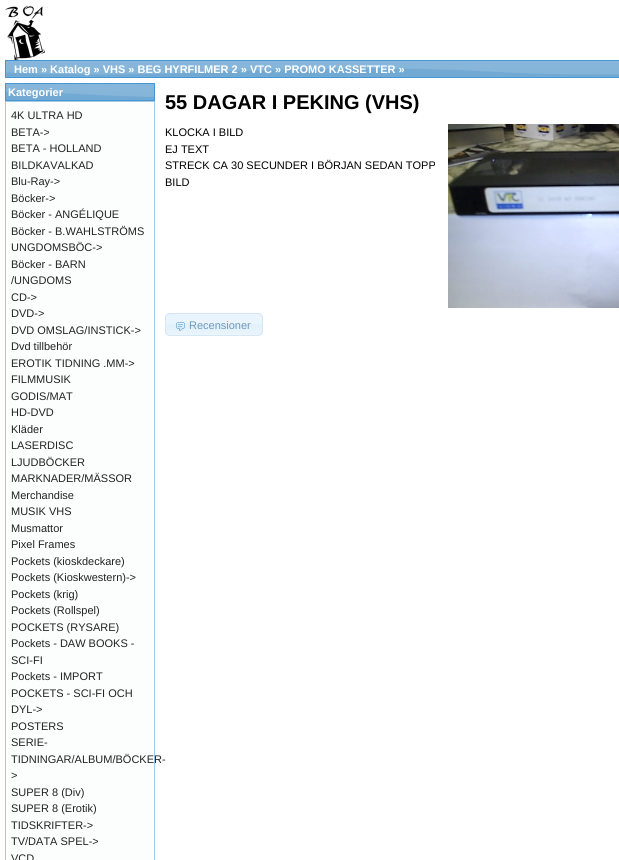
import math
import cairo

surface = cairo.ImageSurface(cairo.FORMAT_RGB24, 619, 860)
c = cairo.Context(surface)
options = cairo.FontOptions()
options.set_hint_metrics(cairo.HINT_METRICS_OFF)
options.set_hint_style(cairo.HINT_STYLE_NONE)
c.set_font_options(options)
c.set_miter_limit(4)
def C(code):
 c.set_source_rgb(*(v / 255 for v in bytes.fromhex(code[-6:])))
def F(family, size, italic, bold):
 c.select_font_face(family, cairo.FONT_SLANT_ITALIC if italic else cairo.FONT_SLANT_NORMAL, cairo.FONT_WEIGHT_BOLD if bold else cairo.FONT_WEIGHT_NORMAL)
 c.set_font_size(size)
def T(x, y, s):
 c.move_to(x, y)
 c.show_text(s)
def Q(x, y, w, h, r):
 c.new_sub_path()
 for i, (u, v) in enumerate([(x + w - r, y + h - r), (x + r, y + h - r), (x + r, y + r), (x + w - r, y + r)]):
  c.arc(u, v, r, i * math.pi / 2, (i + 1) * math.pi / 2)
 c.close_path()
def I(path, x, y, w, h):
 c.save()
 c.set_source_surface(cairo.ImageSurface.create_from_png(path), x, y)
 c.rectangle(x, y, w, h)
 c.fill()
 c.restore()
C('ffffff')
c.paint()
I('1.png',5,5,40,55)
I('2.png',6,61,613,16)
c.rectangle(5.5,60.5,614,17)
C('4297d7')
c.set_line_width(1)
c.stroke()
F('Liberation Sans',11,0,1)
C('ffffff')
T(14,73,'Hem » Katalog » VHS » BEG HYRFILMER 2 » VTC » PROMO KASSETTER »')
I('3.png',6,84,148,16)
c.rectangle(5.5,83.5,149,17)
C('4297d7')
c.stroke()
C('ffffff')
T(8,96,'Kategorier')
C('fcfdfd')
c.rectangle(5.5,101.5,149,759)
c.fill_preserve()
C('a6c9e2')
c.stroke()
F('Liberation Sans',11,0,0)
C('222222')
T(11,119,'4K ULTRA HD')
T(11,136,'BETA->')
T(11,152,'BETA - HOLLAND')
T(11,169,'BILDKAVALKAD')
T(11,185,'Blu-Ray->')
T(11,202,'Böcker->')
T(11,218,'Böcker - ANGÉLIQUE')
T(11,235,'Böcker - B.WAHLSTRÖMS')
T(11,251,'UNGDOMSBÖC->')
T(11,268,'Böcker - BARN')
T(11,284,'/UNGDOMS')
T(11,301,'CD->')
T(11,317,'DVD->')
T(11,334,'DVD OMSLAG/INSTICK->')
T(11,350,'Dvd tillbehör')
T(11,367,'EROTIK TIDNING .MM->')
T(11,383,'FILMMUSIK')
T(11,400,'GODIS/MAT')
T(11,416,'HD-DVD')
T(11,433,'Kläder')
T(11,449,'LASERDISC')
T(11,466,'LJUDBÖCKER')
T(11,482,'MARKNADER/MÄSSOR')
T(11,499,'Merchandise')
T(11,515,'MUSIK VHS')
T(11,532,'Musmattor')
T(11,548,'Pixel Frames')
T(11,565,'Pockets (kioskdeckare)')
T(11,581,'Pockets (Kioskwestern)->')
T(11,598,'Pockets (krig)')
T(11,614,'Pockets (Rollspel)')
T(11,631,'POCKETS (RYSARE)')
T(11,647,'Pockets - DAW BOOKS -')
T(11,664,'SCI-FI')
T(11,680,'Pockets - IMPORT')
T(11,697,'POCKETS - SCI-FI OCH')
T(11,713,'DYL->')
T(11,730,'POSTERS')
T(11,746,'SERIE-')
T(11,763,'TIDNINGAR/ALBUM/BÖCKER-')
T(11,779,'>')
T(11,796,'SUPER 8 (Div)')
T(11,812,'SUPER 8 (Erotik)')
T(11,829,'TIDSKRIFTER->')
T(11,845,'TV/DATA SPEL->')
T(11,862,'VCD')
F('Liberation Sans',20,0,1)
C('000000')
T(165,109,'55 DAGAR I PEKING (VHS)')
F('Liberation Sans',11,0,0)
T(165,136,'KLOCKA I BILD')
I('4.png',448,124,171,184)
T(165,153,'EJ TEXT')
T(165,169,'STRECK CA 30 SECUNDER I BÖRJAN SEDAN TOPP')
T(165,186,'BILD')
C('e9f4fd')
Q(165,313,98,23,5)
c.fill()
I('5.png',165,324,98,11)
Q(165.5,313.5,97,22,4.5)
C('d6e6f2')
c.stroke()
I('6.png',176,322,9,9)
C('6d9abb')
T(189,329,'Recensioner')
surface.write_to_png('o.png')
